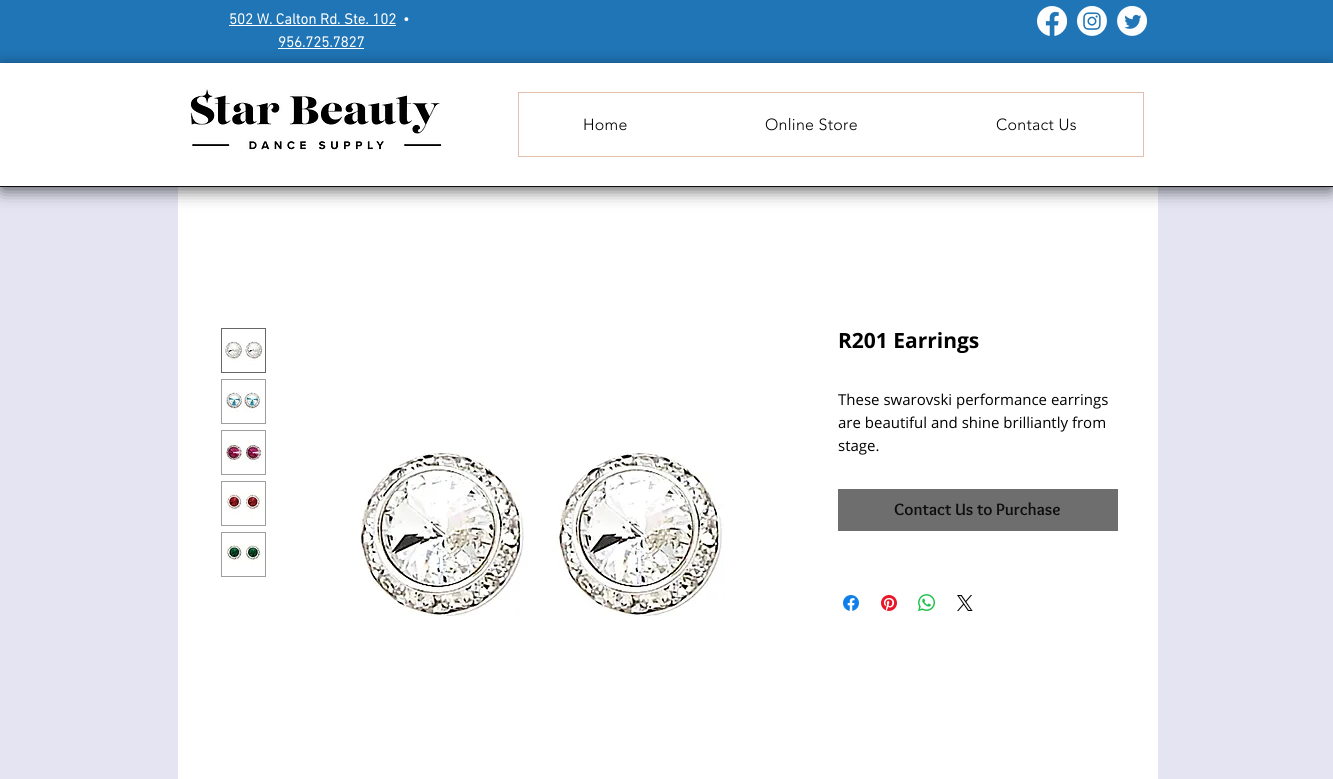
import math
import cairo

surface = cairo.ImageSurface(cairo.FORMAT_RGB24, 1333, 779)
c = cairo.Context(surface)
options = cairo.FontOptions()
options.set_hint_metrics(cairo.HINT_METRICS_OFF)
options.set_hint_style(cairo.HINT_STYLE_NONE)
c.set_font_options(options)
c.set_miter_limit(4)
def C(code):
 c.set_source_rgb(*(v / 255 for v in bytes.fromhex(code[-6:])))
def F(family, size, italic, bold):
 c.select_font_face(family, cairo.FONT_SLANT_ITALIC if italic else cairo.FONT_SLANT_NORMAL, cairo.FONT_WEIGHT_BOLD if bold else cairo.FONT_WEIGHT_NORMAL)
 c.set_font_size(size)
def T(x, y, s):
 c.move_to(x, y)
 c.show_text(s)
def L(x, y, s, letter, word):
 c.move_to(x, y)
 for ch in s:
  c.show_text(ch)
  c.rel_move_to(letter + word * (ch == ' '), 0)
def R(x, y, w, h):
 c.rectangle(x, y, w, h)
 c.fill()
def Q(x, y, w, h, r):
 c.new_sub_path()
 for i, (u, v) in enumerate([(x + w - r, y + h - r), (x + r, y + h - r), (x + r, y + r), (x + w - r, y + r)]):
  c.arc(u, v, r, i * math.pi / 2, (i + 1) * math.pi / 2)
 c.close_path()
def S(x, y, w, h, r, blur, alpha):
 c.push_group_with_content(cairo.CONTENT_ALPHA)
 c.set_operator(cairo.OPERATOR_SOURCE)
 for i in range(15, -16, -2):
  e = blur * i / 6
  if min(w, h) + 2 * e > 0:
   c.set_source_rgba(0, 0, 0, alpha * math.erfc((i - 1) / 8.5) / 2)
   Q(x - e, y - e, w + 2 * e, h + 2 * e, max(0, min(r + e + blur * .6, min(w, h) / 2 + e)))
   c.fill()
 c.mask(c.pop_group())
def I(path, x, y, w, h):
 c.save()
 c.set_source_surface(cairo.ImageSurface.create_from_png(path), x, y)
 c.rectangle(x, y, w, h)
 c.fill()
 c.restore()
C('e4e4f3')
c.paint()
C('1f75b6')
R(0,0,1333,63)
F('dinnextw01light',15,0,1)
C('ffffff')
T(229,24,'502 W. Calton Rd. Ste. 102')
R(229,25,167,1)
T(403,24,'•')
T(278,47,'956.725.7827')
R(278,48,86,1)
I('1.png',1037,6,30,30)
I('2.png',1077,6,30,30)
I('3.png',1117,6,30,30)
R(178,187,980,592)
C('000000')
S(2,69,1329,120,0,9,.7)
C('ffffff')
R(0,63,1333,123)
C('0e0e0e')
R(0,186,1333,1)
I('4.png',190,89,252,61)
c.rectangle(518.5,92.5,625,64)
C('e4bfad')
c.set_line_width(1)
c.stroke()
F('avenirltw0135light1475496 Light',16,0,0)
C('000000')
L(583,130,'Home',.25,0)
L(765,130,'Online Store',.25,0)
L(996,130,'Contact Us',.25,0)
c.rectangle(221.5,328.5,44,44)
C('666666')
c.stroke()
I('5.png',222,329,43,43)
C('9e9e9e')
R(221,379,45,45)
I('6.png',222,380,43,43)
R(221,430,45,45)
I('7.png',222,431,43,43)
R(221,481,45,45)
I('8.png',222,482,43,43)
R(221,532,45,45)
I('9.png',222,533,43,43)
I('10.png',360,452,364,164)
F('Open Sans',21,0,1)
C('000000')
T(838,348,'R201 Earrings')
F('Open Sans',15,0,0)
T(838,405,'These swarovski performance earrings')
T(838,428,'are beautiful and shine brilliantly from')
T(838,451,'stage.')
C('6e6e6e')
R(838,489,280,42)
F('Overlock',17,0,1)
C('0e0e0e')
T(894,515,'Contact Us to Purchase')
I('11.png',843,595,16,16)
I('12.png',881,595,16,16)
I('13.png',918,594,17,17)
I('14.png',957,595,16,16)
surface.write_to_png('o.png')
